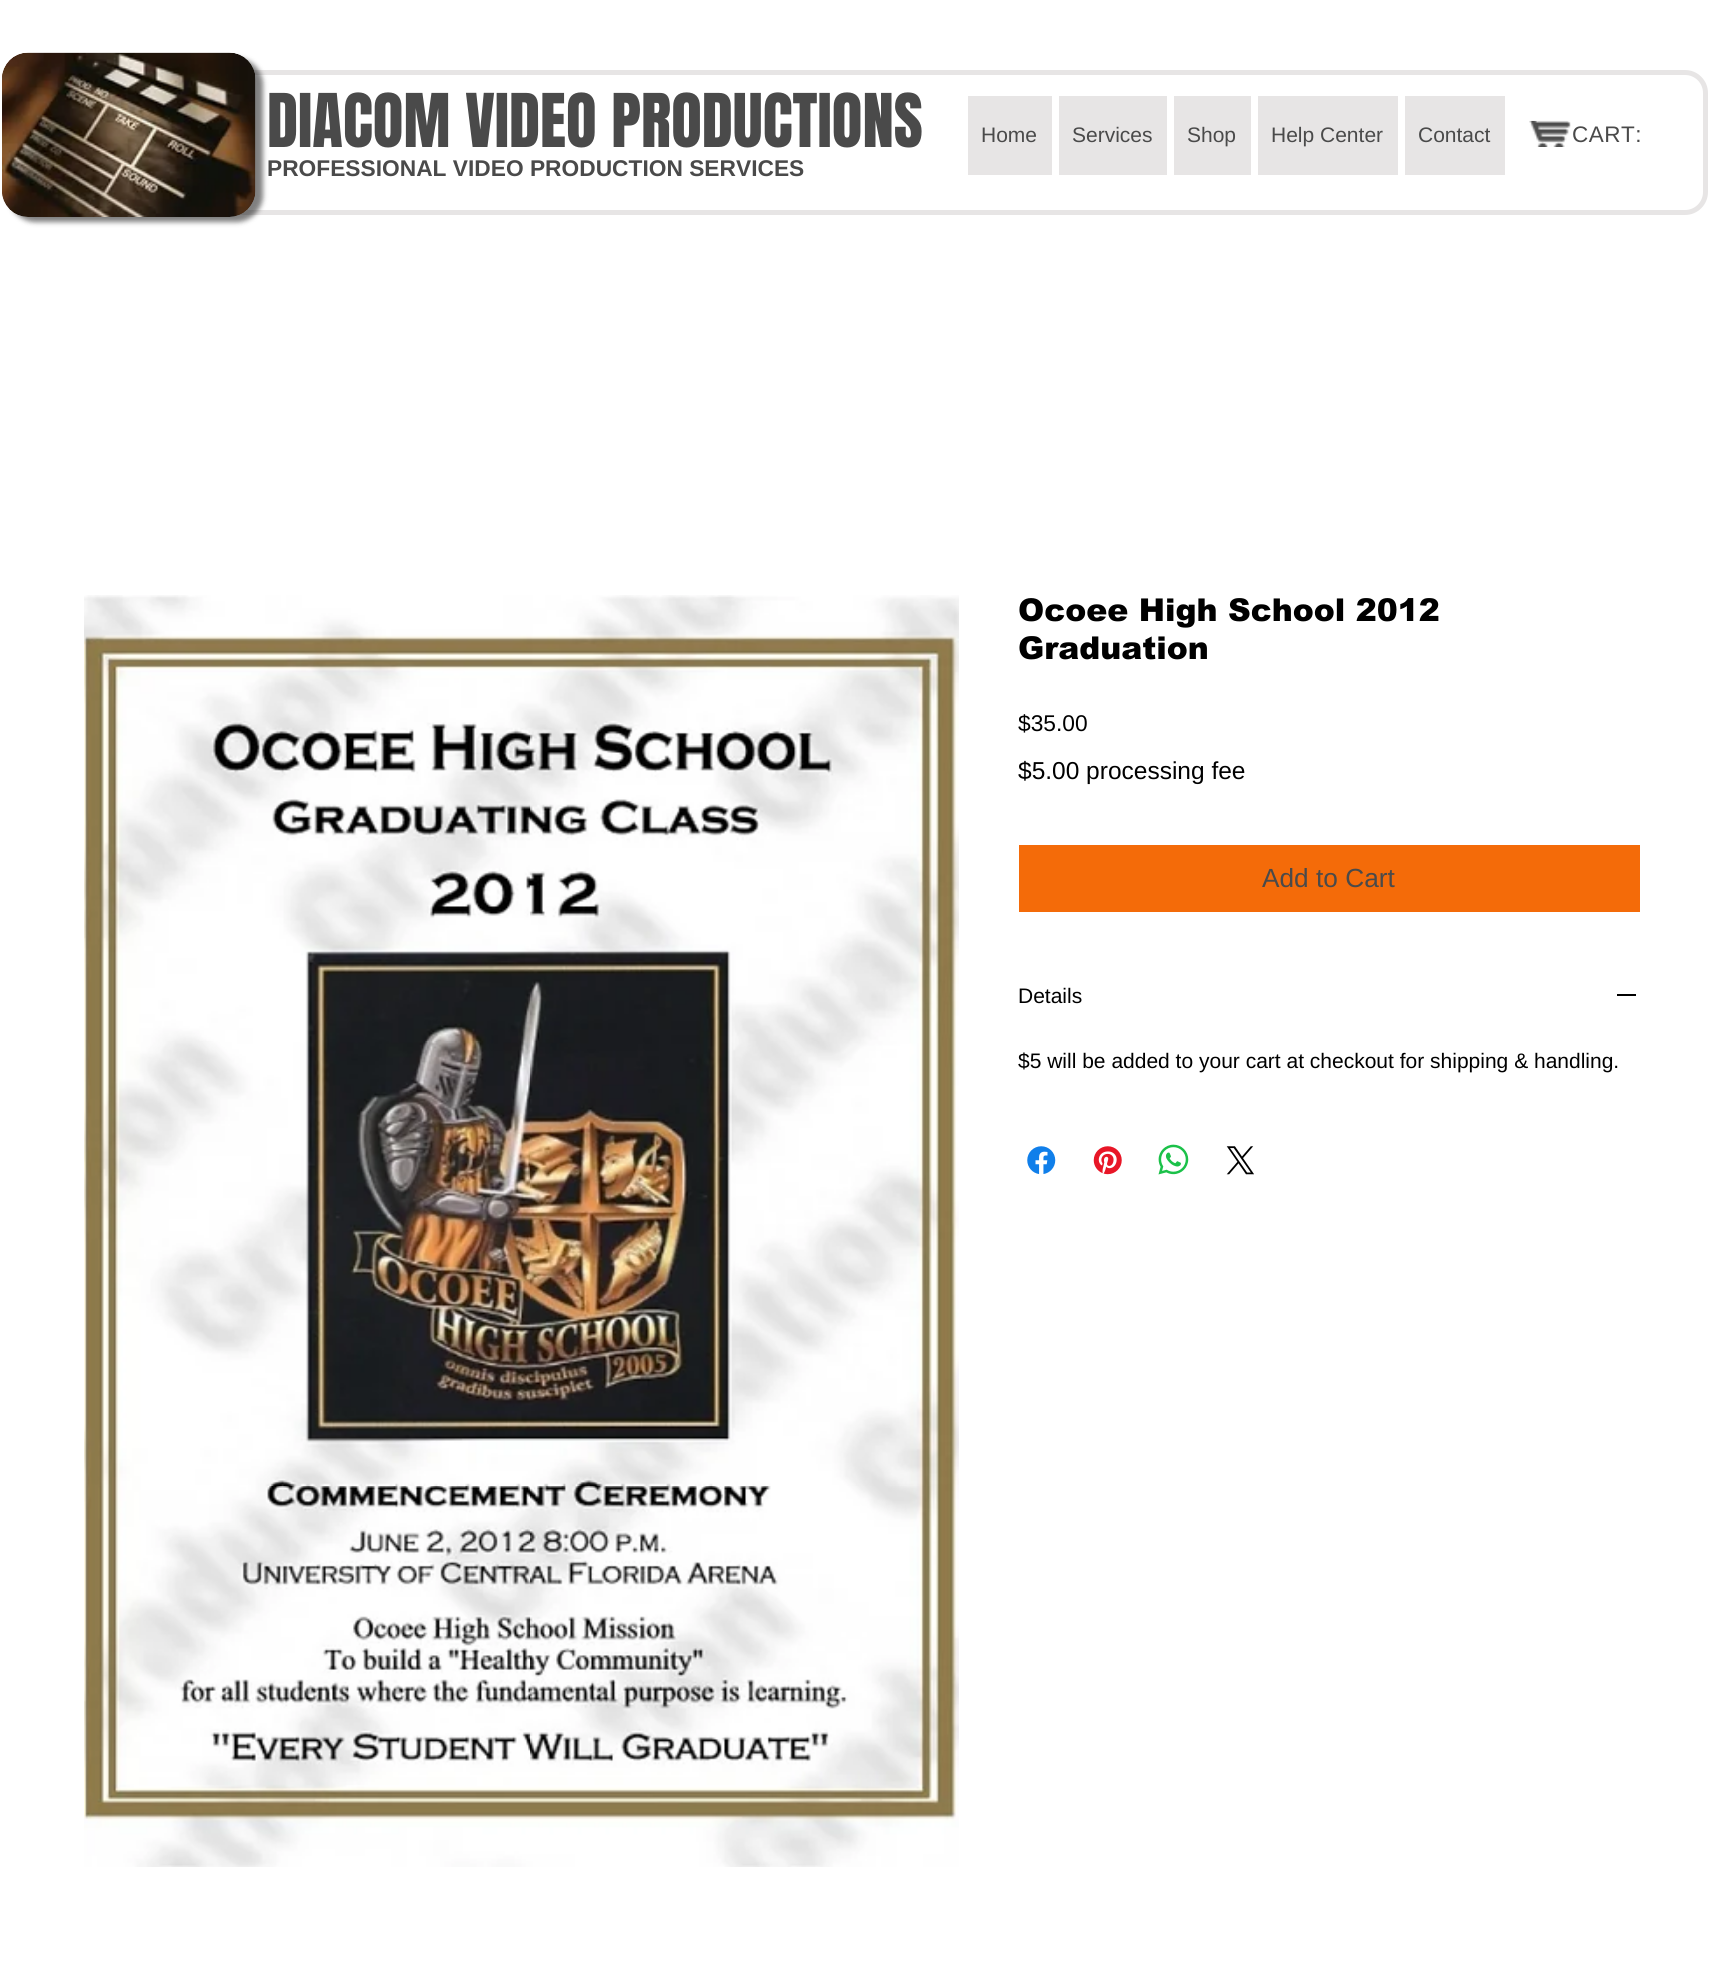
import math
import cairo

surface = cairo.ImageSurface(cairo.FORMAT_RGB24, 1719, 1967)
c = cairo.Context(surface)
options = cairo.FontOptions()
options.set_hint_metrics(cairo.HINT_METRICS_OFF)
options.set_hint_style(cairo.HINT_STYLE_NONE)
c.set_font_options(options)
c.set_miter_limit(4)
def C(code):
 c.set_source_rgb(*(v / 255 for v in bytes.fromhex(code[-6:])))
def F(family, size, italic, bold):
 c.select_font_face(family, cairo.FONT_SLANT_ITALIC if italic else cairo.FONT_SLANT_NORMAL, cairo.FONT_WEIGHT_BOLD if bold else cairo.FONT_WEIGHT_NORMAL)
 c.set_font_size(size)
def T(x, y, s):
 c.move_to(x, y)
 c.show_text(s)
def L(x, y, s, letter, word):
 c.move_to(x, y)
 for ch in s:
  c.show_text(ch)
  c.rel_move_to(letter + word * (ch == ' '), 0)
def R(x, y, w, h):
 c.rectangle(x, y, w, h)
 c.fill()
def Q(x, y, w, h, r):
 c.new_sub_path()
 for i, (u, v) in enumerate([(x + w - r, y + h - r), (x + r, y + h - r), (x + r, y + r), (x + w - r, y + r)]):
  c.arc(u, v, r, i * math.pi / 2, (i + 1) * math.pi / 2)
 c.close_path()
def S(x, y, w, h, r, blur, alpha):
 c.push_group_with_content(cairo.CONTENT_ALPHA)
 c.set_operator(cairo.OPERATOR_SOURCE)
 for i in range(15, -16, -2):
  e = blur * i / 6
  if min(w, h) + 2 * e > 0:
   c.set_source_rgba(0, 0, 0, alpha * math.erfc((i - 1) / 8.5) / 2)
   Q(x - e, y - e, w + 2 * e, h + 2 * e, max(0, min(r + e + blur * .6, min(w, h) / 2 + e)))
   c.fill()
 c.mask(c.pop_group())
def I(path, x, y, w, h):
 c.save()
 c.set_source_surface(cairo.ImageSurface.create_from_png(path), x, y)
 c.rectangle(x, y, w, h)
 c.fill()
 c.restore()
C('ffffff')
c.paint()
Q(13.5,72.5,1692,140,20.5)
C('e7e5e5')
c.set_line_width(5)
c.stroke()
C('000000')
S(9,58,254,164,26,2.5,.5)
I('1.png',2,52,254,165)
F('Anton',63,0,0)
C('4a4a4a')
T(267,147,'DIACOM VIDEO PRODUCTIONS')
F('Liberation Sans',22.75,0,1)
T(267,176,'PROFESSIONAL VIDEO PRODUCTION SERVICES')
C('e7e5e5')
R(968,96,84,79)
F('Liberation Sans',21,0,0)
C('4a4a4a')
T(981,142,'Home')
C('e7e5e5')
R(1059,96,108,79)
C('4a4a4a')
T(1072,142,'Services')
C('e7e5e5')
R(1174,96,77,79)
C('4a4a4a')
T(1187,142,'Shop')
C('e7e5e5')
R(1258,96,140,79)
C('4a4a4a')
T(1271,142,'Help Center')
C('e7e5e5')
R(1405,96,100,79)
C('4a4a4a')
T(1418,142,'Contact')
I('2.png',1529,120,42,27)
F('Liberation Sans',22.5,0,0)
L(1572,142,'CART:',.5,0)
I('3.png',84,595,875,1272)
F('arial Black',31.5,0,0)
C('000000')
T(1018,621,'Ocoee High School 2012')
T(1018,659,'Graduation')
F('Liberation Sans',22.75,0,0)
T(1018,731,'$35.00')
F('Liberation Sans',24.5,0,0)
T(1018,779,'$5.00 processing fee')
C('f46b09')
R(1019,845,621,67)
F('Liberation Sans',26.25,0,0)
C('4a4a4a')
T(1262,887,'Add to Cart')
F('Liberation Sans',21,0,0)
C('000000')
T(1018,1003,'Details')
R(1617,994,19,2)
T(1018,1068,'$5 will be added to your cart at checkout for shipping & handling.')
I('4.png',1027,1146,29,28)
I('5.png',1093,1146,29,29)
I('6.png',1158,1144,31,31)
I('7.png',1226,1146,28,29)
surface.write_to_png('o.png')
